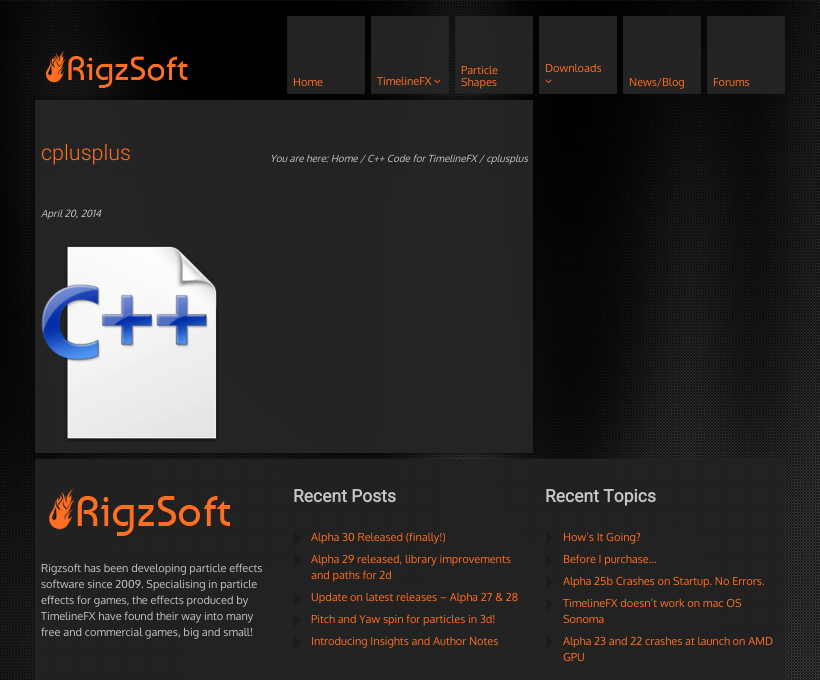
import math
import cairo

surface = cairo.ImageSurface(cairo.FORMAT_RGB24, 820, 680)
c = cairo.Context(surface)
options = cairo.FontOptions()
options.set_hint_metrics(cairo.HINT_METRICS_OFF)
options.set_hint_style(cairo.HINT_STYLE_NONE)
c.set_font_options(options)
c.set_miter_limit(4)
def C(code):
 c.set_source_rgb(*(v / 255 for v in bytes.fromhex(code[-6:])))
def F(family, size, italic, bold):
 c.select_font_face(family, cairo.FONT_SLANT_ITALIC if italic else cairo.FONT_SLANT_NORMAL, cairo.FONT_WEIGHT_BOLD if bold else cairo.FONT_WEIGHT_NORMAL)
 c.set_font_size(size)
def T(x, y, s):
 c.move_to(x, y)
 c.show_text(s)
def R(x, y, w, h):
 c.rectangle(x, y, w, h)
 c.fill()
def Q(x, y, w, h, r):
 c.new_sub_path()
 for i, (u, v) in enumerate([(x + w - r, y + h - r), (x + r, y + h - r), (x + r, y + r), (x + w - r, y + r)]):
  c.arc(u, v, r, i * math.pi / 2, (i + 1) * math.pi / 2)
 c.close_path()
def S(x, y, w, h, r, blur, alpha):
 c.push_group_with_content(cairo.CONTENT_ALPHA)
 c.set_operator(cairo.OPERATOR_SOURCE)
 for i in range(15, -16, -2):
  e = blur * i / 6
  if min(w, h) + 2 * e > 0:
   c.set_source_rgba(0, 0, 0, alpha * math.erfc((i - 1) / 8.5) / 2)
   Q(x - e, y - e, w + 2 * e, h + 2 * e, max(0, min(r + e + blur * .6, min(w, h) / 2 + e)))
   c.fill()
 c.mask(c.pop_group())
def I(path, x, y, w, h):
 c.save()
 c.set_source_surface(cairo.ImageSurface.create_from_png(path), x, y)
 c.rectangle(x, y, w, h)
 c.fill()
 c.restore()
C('ffffff')
c.paint()
I('1.png',0,0,820,680)
I('2.png',0,0,820,680)
I('3.png',46,50,142,38)
c.set_source_rgba(0.145,0.145,0.145,0.95)
c.rectangle(287.5,16.5,77,77)
c.fill_preserve()
C('212121')
c.set_line_width(1)
c.stroke()
F('Oxygen',11,0,0)
C('ff6e22')
T(293,86,'Home')
c.set_source_rgba(0.145,0.145,0.145,0.95)
c.rectangle(371.5,16.5,77,77)
c.fill_preserve()
C('212121')
c.stroke()
C('ff6e22')
T(377,85,'TimelineFX')
I('4.png',434,79,7,5)
c.set_source_rgba(0.145,0.145,0.145,0.95)
c.rectangle(455.5,16.5,77,77)
c.fill_preserve()
C('212121')
c.stroke()
C('ff6e22')
T(461,74,'Particle')
T(461,86,'Shapes')
c.set_source_rgba(0.145,0.145,0.145,0.95)
c.rectangle(539.5,16.5,77,77)
c.fill_preserve()
C('212121')
c.stroke()
C('ff6e22')
T(545,72,'Downloads')
I('5.png',545,79,7,5)
c.set_source_rgba(0.145,0.145,0.145,0.95)
c.rectangle(623.5,16.5,77,77)
c.fill_preserve()
C('212121')
c.stroke()
C('ff6e22')
T(629,86,'News/Blog')
c.set_source_rgba(0.145,0.145,0.145,0.95)
c.rectangle(707.5,16.5,77,77)
c.fill_preserve()
C('212121')
c.stroke()
C('ff6e22')
T(713,86,'Forums')
c.set_source_rgba(0.133,0.133,0.133,0.95)
R(35,459,750,221)
c.save()
c.set_fill_rule(cairo.FILL_RULE_EVEN_ODD)
c.new_path()
c.move_to(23,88)
c.line_to(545,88)
c.line_to(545,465)
c.line_to(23,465)
c.close_path()
c.move_to(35,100)
c.line_to(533,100)
c.line_to(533,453)
c.line_to(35,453)
c.close_path()
c.clip()
C('000000')
S(33,98,502,357,0,3,.5)
c.restore()
c.set_source_rgba(0.145,0.145,0.145,0.95)
R(35,100,498,353)
F('Roboto Light',21.5,0,0)
C('ff6e22')
T(41,160,'cplusplus')
F('Oxygen',9.9,1,0)
C('c5c5c5')
T(270,162,'You are here: Home / C++ Code for TimelineFX / cplusplus')
C('202020')
R(35,172,498,1)
C('c5c5c5')
T(41,217,'April 20, 2014')
I('6.png',41,245,178,197)
I('7.png',48,487,182,49)
F('Oxygen',11,0,0)
T(41,572,'Rigzsoft has been developing particle effects')
T(41,588,'software since 2009. Specialising in particle')
T(41,604,'effects for games, the effects produced by')
T(41,620,'TimelineFX have found their way into many')
T(41,636,'free and commercial games, big and small!')
F('Roboto',17.5,0,1)
T(293,502,'Recent Posts')
I('8.png',294,532,7,13)
F('Oxygen',11,0,0)
C('ff6e22')
T(311,541,'Alpha 30 Released (finally!)')
I('9.png',294,554,7,13)
T(311,563,'Alpha 29 released, library improvements')
T(311,579,'and paths for 2d')
I('10.png',294,592,7,13)
T(311,601,'Update on latest releases – Alpha 27 & 28')
I('11.png',294,614,7,13)
T(311,623,'Pitch and Yaw spin for particles in 3d!')
I('12.png',294,636,7,13)
T(311,645,'Introducing Insights and Author Notes')
F('Roboto',17.5,0,1)
C('c5c5c5')
T(545,502,'Recent Topics')
I('13.png',546,532,7,13)
F('Oxygen',11,0,0)
C('ff6e22')
T(563,541,'How’s It Going?')
I('14.png',546,554,7,13)
T(563,563,'Before I purchase…')
I('15.png',546,576,7,13)
T(563,585,'Alpha 25b Crashes on Startup. No Errors.')
I('16.png',546,598,7,13)
T(563,607,'TimelineFX doesn’t work on mac OS')
T(563,623,'Sonoma')
I('17.png',546,636,7,13)
T(563,645,'Alpha 23 and 22 crashes at launch on AMD')
T(563,661,'GPU')
surface.write_to_png('o.png')
